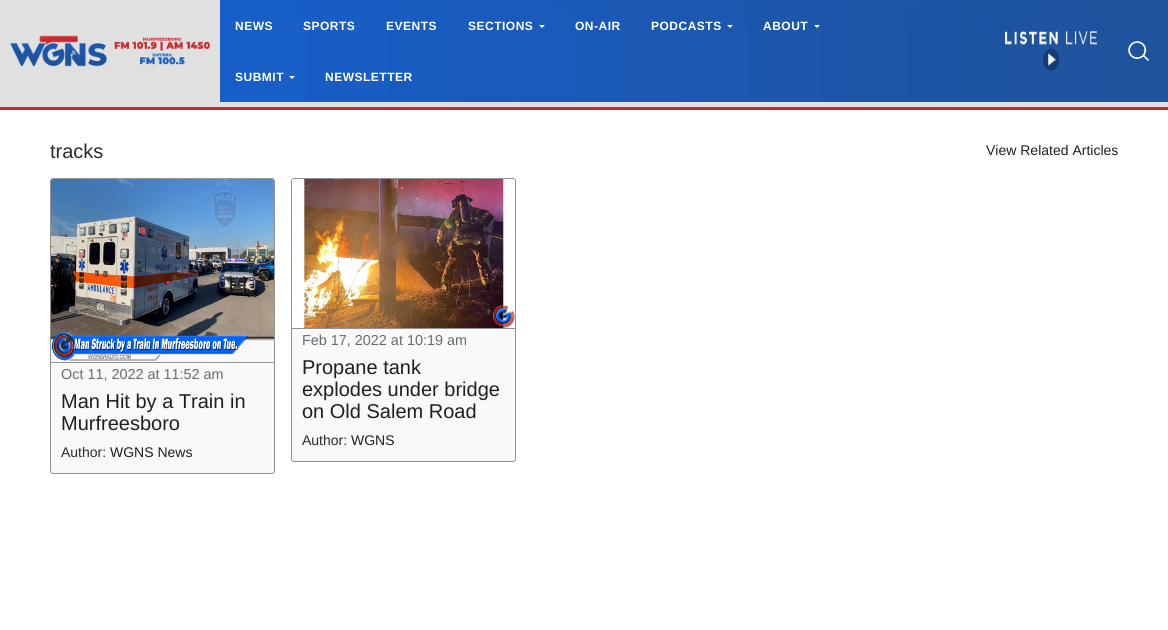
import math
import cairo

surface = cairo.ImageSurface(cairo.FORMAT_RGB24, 1168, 630)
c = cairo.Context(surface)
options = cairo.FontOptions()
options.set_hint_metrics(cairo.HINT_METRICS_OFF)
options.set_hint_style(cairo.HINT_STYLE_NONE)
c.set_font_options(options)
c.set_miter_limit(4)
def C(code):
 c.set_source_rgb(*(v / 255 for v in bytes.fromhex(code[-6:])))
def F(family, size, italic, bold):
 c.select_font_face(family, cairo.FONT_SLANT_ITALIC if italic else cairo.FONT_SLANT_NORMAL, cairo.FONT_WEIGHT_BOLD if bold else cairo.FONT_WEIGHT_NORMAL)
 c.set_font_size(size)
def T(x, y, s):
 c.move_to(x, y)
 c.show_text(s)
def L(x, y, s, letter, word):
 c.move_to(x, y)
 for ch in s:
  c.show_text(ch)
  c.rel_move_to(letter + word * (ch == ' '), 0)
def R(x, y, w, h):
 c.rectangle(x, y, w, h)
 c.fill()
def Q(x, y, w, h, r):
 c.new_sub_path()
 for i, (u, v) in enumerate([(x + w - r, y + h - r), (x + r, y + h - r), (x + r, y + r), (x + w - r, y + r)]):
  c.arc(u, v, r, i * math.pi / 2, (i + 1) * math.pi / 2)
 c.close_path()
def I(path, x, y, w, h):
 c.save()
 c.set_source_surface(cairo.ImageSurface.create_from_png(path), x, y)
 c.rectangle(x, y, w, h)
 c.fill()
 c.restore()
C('ffffff')
c.paint()
I('1.png',220,0,948,102)
C('e0e0e0')
R(0,102,1168,5)
R(0,0,220,102)
I('2.png',10,35,200,32)
F('Liberation Sans',12,0,1)
C('ffffff')
L(235,30,'NEWS',.5,0)
L(303,30,'SPORTS',.5,0)
L(386,30,'EVENTS',.5,0)
L(468,30,'SECTIONS',.5,0)
c.new_path()
c.move_to(539,25)
c.line_to(545,25)
c.line_to(542,28)
c.close_path()
c.fill()
L(575,30,'ON-AIR',.5,0)
L(651,30,'PODCASTS',.5,0)
c.new_path()
c.move_to(727,25)
c.line_to(733,25)
c.line_to(730,28)
c.close_path()
c.fill()
L(763,30,'ABOUT',.5,0)
c.new_path()
c.move_to(814,25)
c.line_to(820,25)
c.line_to(817,28)
c.close_path()
c.fill()
L(235,81,'SUBMIT',.5,0)
c.new_path()
c.move_to(289,76)
c.line_to(295,76)
c.line_to(292,79)
c.close_path()
c.fill()
L(325,81,'NEWSLETTER',.5,0)
I('3.png',1005,31,92,40)
I('4.png',1128,41,21,20)
C('c62a2e')
R(0,107,1168,3)
F('Liberation Sans',20,0,0)
C('292b2c')
T(50,158,'tracks')
F('Liberation Sans',14,0,0)
C('1f1f1f')
T(986,155,'View Related Articles')
C('f9f9f9')
Q(50.5,178.5,224,295,2.5)
c.fill_preserve()
C('929292')
c.set_line_width(1)
c.stroke()
I('5.png',51,179,223,182)
R(51,362,223,1)
F('Liberation Sans',14.4,0,0)
C('636c72')
T(61,379,'Oct 11, 2022 at 11:52 am')
F('Liberation Sans',20,0,0)
C('1f1f1f')
T(61,408,'Man Hit by a Train in')
T(61,430,'Murfreesboro')
F('Liberation Sans',14,0,0)
C('292b2c')
T(61,457,'Author:')
C('1f1f1f')
T(110,457,'WGNS News')
C('f9f9f9')
Q(291.5,178.5,224,283,2.5)
c.fill_preserve()
C('929292')
c.stroke()
I('6.png',292,179,223,149)
R(292,328,223,1)
F('Liberation Sans',14.4,0,0)
C('636c72')
T(302,345,'Feb 17, 2022 at 10:19 am')
F('Liberation Sans',20,0,0)
C('1f1f1f')
T(302,374,'Propane tank')
T(302,396,'explodes under bridge')
T(302,418,'on Old Salem Road')
F('Liberation Sans',14,0,0)
C('292b2c')
T(302,445,'Author:')
C('1f1f1f')
T(351,445,'WGNS')
surface.write_to_png('o.png')
